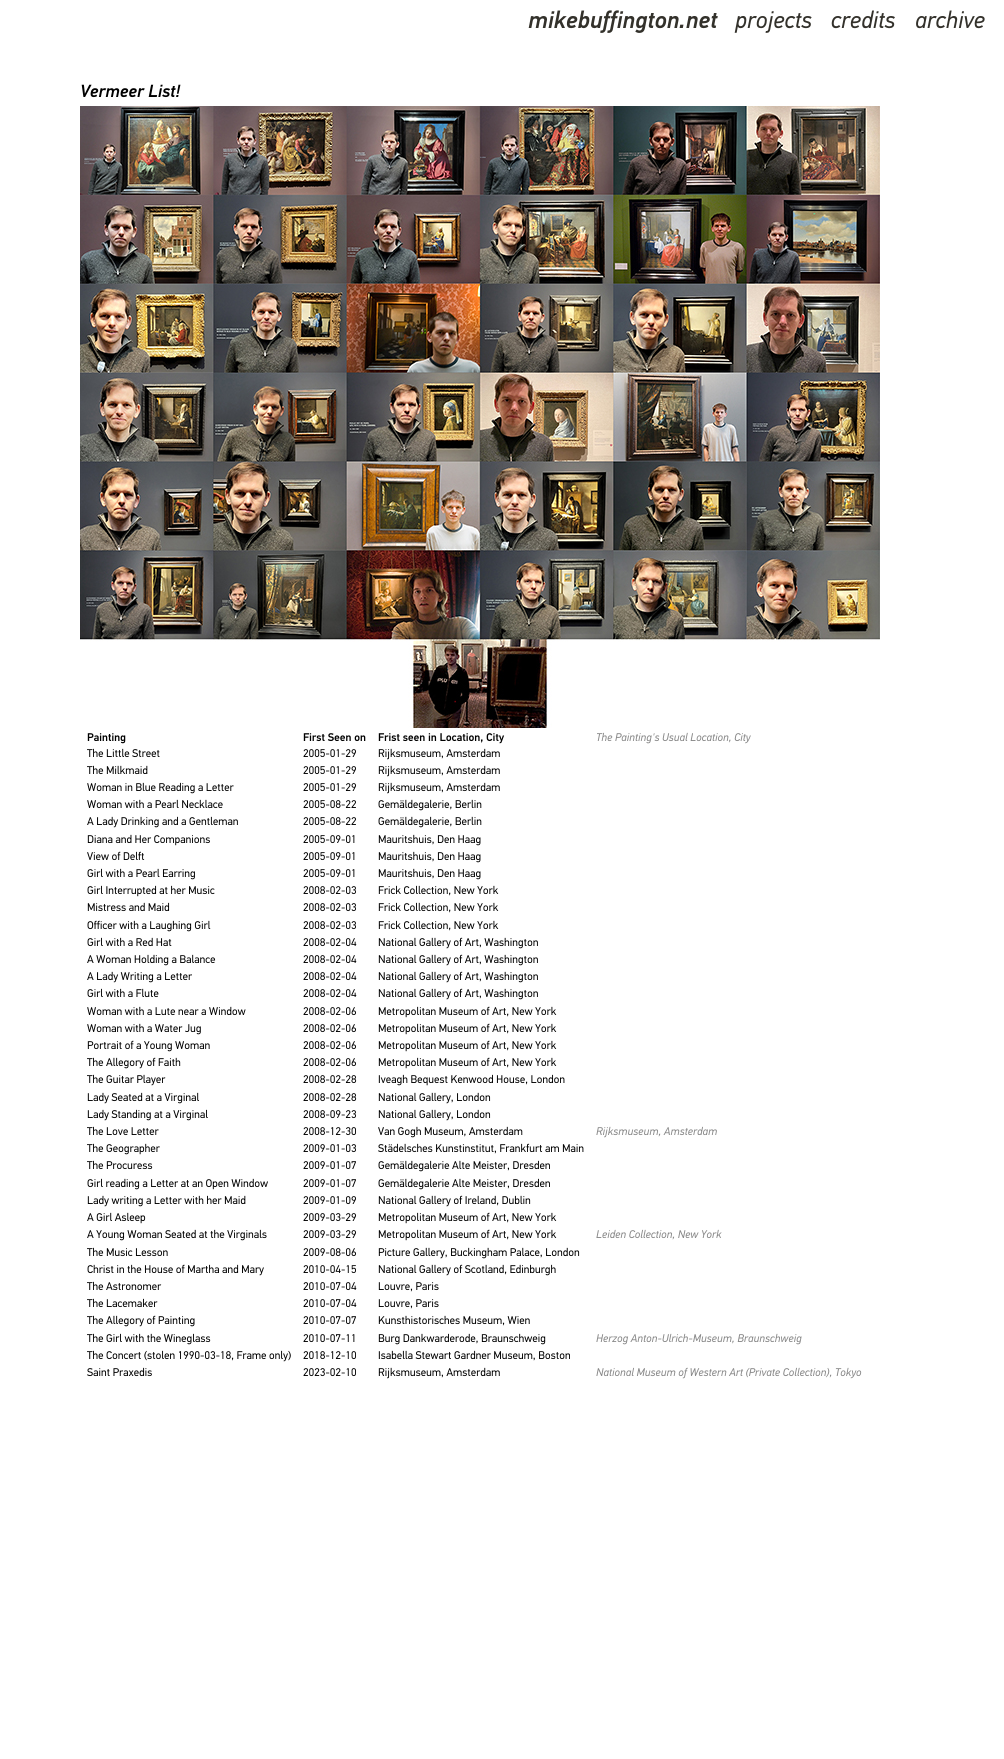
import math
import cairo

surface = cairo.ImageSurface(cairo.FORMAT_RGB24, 1004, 1759)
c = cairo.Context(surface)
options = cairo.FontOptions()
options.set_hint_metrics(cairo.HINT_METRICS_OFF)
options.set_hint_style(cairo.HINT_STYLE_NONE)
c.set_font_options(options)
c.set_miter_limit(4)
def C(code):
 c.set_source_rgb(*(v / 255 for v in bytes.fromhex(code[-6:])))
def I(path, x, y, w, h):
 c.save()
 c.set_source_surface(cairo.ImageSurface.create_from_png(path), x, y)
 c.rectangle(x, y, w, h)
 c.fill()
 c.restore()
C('ffffff')
c.paint()
I('1.png',528,10,190,23)
I('2.png',734,11,78,22)
I('3.png',831,10,64,19)
I('4.png',916,10,69,19)
I('5.png',81,84,100,14)
I('6.png',80,106,800,622)
I('7.png',87,733,39,11)
I('8.png',303,733,63,9)
I('9.png',378,733,127,11)
I('10.png',597,732,154,12)
I('11.png',87,748,73,10)
I('12.png',303,749,53,9)
I('13.png',378,748,122,12)
I('14.png',87,765,61,10)
I('12.png',303,766,53,9)
I('13.png',378,765,122,12)
I('15.png',87,782,147,12)
I('12.png',303,783,53,9)
I('13.png',378,782,122,12)
I('16.png',87,799,136,10)
I('17.png',303,800,53,9)
I('18.png',378,799,104,12)
I('19.png',87,816,151,12)
I('17.png',303,817,53,9)
I('18.png',378,816,104,12)
I('20.png',87,834,123,12)
I('21.png',303,835,52,9)
I('22.png',378,834,103,12)
I('23.png',87,851,58,10)
I('21.png',303,852,52,9)
I('22.png',378,851,103,12)
I('24.png',87,868,108,12)
I('21.png',303,869,52,9)
I('22.png',378,868,103,12)
I('25.png',87,885,128,12)
I('26.png',303,886,53,9)
I('27.png',378,885,121,11)
I('28.png',87,902,83,10)
I('26.png',303,903,53,9)
I('27.png',378,902,121,11)
I('29.png',87,920,124,12)
I('26.png',303,921,53,9)
I('27.png',378,920,121,11)
I('30.png',87,937,85,10)
I('31.png',303,938,54,9)
I('32.png',378,937,160,12)
I('33.png',87,954,129,12)
I('31.png',303,955,54,9)
I('32.png',378,954,160,12)
I('34.png',87,971,105,12)
I('31.png',303,972,54,9)
I('32.png',378,971,160,12)
I('35.png',87,988,72,10)
I('31.png',303,989,54,9)
I('32.png',378,988,160,12)
I('36.png',87,1006,159,10)
I('37.png',303,1007,53,9)
I('38.png',378,1006,179,12)
I('39.png',87,1023,114,12)
I('37.png',303,1024,53,9)
I('38.png',378,1023,179,12)
I('40.png',87,1040,123,12)
I('37.png',303,1041,53,9)
I('38.png',378,1040,179,12)
I('41.png',87,1057,94,12)
I('37.png',303,1058,53,9)
I('38.png',378,1057,179,12)
I('42.png',87,1074,79,12)
I('43.png',303,1075,54,9)
I('44.png',378,1074,187,12)
I('45.png',87,1092,112,12)
I('43.png',303,1093,54,9)
I('46.png',378,1092,113,12)
I('47.png',87,1109,121,12)
I('48.png',303,1110,53,9)
I('46.png',378,1109,113,12)
I('49.png',87,1126,72,10)
I('50.png',303,1127,53,9)
I('51.png',378,1126,145,12)
I('52.png',596,1126,121,12)
I('53.png',87,1143,73,12)
I('54.png',303,1144,53,9)
I('55.png',378,1143,206,11)
I('56.png',87,1160,66,10)
I('57.png',303,1161,53,9)
I('58.png',378,1160,172,12)
I('59.png',87,1178,181,12)
I('57.png',303,1179,53,9)
I('58.png',378,1178,172,12)
I('60.png',87,1195,159,12)
I('61.png',303,1196,53,9)
I('62.png',378,1195,153,12)
I('63.png',87,1212,59,12)
I('64.png',303,1213,53,9)
I('38.png',378,1212,179,12)
I('65.png',87,1229,180,12)
I('64.png',303,1230,53,9)
I('38.png',378,1229,179,12)
I('66.png',596,1229,126,11)
I('67.png',87,1247,81,10)
I('68.png',303,1248,53,9)
I('69.png',378,1247,202,12)
I('70.png',87,1264,177,12)
I('71.png',303,1265,53,9)
I('72.png',378,1264,178,12)
I('73.png',87,1281,75,10)
I('74.png',303,1282,54,9)
I('75.png',378,1282,61,10)
I('76.png',87,1298,71,10)
I('74.png',303,1299,54,9)
I('75.png',378,1299,61,10)
I('77.png',87,1315,108,12)
I('78.png',303,1316,53,9)
I('79.png',378,1315,152,11)
I('80.png',87,1333,124,12)
I('81.png',303,1334,52,9)
I('82.png',378,1333,168,12)
I('83.png',596,1333,206,12)
I('84.png',87,1350,204,12)
I('85.png',303,1351,53,9)
I('86.png',378,1350,192,11)
I('87.png',87,1367,65,10)
I('88.png',303,1368,53,9)
I('13.png',378,1367,122,12)
I('89.png',596,1367,266,12)
surface.write_to_png('o.png')
